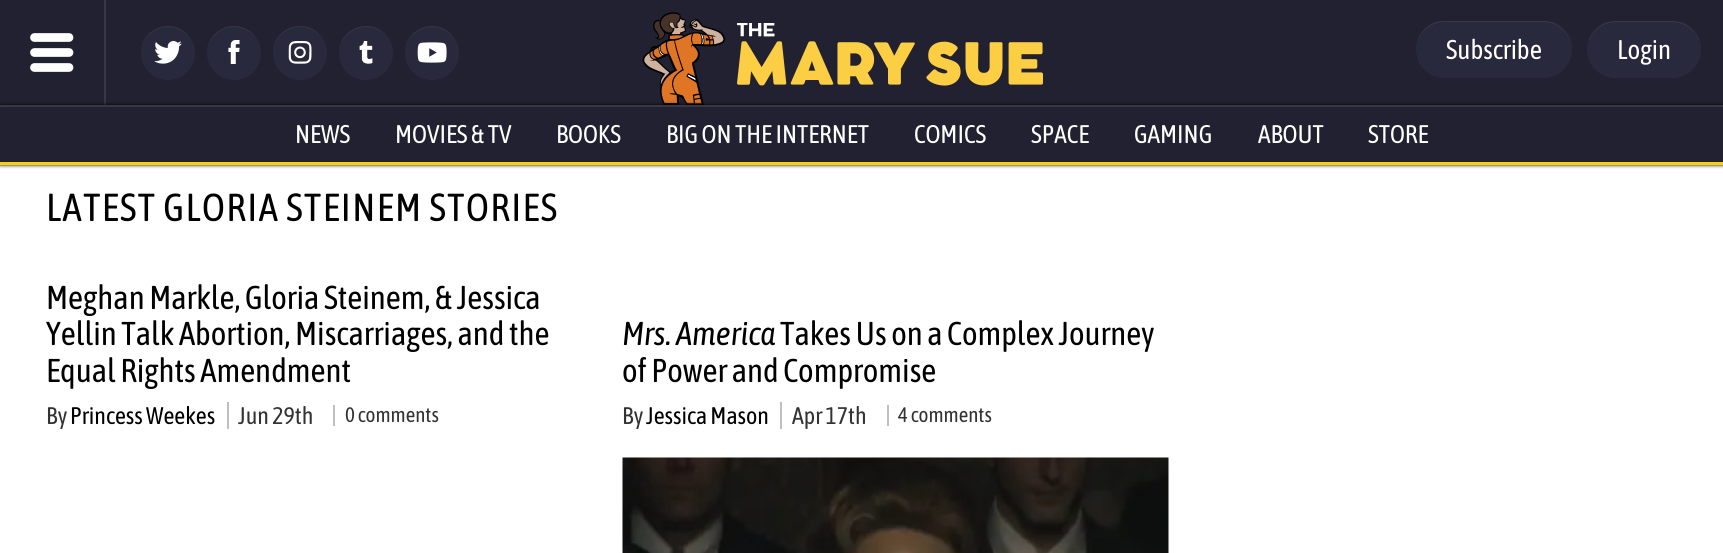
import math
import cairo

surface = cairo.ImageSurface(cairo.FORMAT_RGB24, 1723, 553)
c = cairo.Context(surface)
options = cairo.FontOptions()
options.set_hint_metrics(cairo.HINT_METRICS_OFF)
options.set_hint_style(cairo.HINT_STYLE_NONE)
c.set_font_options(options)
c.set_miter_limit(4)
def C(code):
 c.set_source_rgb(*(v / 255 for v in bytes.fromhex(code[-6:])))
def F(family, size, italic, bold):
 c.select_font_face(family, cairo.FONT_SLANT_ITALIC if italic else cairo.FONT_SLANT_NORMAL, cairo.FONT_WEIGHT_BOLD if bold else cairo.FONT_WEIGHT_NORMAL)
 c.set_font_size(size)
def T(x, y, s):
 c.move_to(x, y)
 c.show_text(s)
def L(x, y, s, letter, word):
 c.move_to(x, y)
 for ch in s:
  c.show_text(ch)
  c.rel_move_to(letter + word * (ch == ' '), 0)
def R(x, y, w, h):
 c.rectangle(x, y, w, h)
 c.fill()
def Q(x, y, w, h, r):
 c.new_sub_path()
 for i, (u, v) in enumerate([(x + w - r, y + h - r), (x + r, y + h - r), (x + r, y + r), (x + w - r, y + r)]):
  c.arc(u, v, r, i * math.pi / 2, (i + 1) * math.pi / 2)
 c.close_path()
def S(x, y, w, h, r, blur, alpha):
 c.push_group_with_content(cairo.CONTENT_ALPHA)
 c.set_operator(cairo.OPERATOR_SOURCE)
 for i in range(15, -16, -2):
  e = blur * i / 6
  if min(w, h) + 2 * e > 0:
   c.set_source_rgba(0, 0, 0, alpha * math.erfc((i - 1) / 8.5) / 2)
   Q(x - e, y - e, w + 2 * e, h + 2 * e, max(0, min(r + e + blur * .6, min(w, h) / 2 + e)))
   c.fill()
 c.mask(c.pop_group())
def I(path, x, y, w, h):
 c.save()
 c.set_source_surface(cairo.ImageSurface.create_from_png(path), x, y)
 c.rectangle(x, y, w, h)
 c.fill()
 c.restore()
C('ffffff')
c.paint()
C('212131')
R(0,0,1723,105)
C('373746')
R(104,0,2,105)
c.new_path()
c.move_to(34.5,37.5)
c.line_to(69,37.5)
c.move_to(34.5,52.5)
c.line_to(69,52.5)
c.move_to(34.5,67.5)
c.line_to(69,67.5)
C('ffffff')
c.set_line_width(8.7)
c.set_line_cap(cairo.LINE_CAP_ROUND)
c.stroke()
C('29293d')
c.arc(168,53,27,0,2 * math.pi)
c.fill()
C('383846')
c.new_path()
c.move_to(168,27)
c.curve_to(183,27,195,39,195,53)
c.curve_to(195,48,193,42,190,38)
c.curve_to(175,16,141,27,141,53)
c.curve_to(141,39,153,27,168,27)
c.close_path()
c.fill()
I('1.png',154,41,28,23)
C('29293d')
c.arc(234,53,27,0,2 * math.pi)
c.fill()
C('383846')
c.new_path()
c.move_to(234,27)
c.curve_to(249,27,261,39,261,53)
c.curve_to(261,48,259,42,256,38)
c.curve_to(241,16,207,27,207,53)
c.curve_to(207,39,219,27,234,27)
c.close_path()
c.fill()
I('2.png',228,40,12,24)
C('29293d')
c.arc(300,53,27,0,2 * math.pi)
c.fill()
C('383846')
c.new_path()
c.move_to(300,27)
c.curve_to(315,27,327,39,327,53)
c.curve_to(327,48,325,42,322,38)
c.curve_to(307,16,273,27,273,53)
c.curve_to(273,39,285,27,300,27)
c.close_path()
c.fill()
I('3.png',288,41,24,23)
C('29293d')
c.arc(366,53,27,0,2 * math.pi)
c.fill()
C('383846')
c.new_path()
c.move_to(366,27)
c.curve_to(381,27,393,39,393,53)
c.curve_to(393,48,391,42,388,38)
c.curve_to(373,16,339,27,339,53)
c.curve_to(339,39,351,27,366,27)
c.close_path()
c.fill()
I('4.png',359,41,14,23)
C('29293d')
c.arc(432,53,27,0,2 * math.pi)
c.fill()
C('383846')
c.new_path()
c.move_to(432,27)
c.curve_to(447,27,459,39,459,53)
c.curve_to(459,48,457,42,454,38)
c.curve_to(439,16,405,27,405,53)
c.curve_to(405,39,417,27,432,27)
c.close_path()
c.fill()
I('5.png',417,42,30,21)
I('6.png',642,12,83,93)
I('7.png',737,23,306,63)
C('29293d')
Q(1416,21,156,57,28.5)
c.fill()
C('383846')
c.new_path()
c.move_to(1444,22)
c.line_to(1544,22)
c.curve_to(1559,22,1572,35,1572,50)
c.curve_to(1572,34,1559,21,1544,21)
c.line_to(1444,21)
c.curve_to(1429,21,1416,34,1416,50)
c.curve_to(1416,35,1429,22,1444,22)
c.close_path()
c.fill()
F('Asap Condensed',27,0,0)
C('fefefe')
T(1446,59,'Subscribe')
C('29293d')
Q(1587,21,114,57,28.5)
c.fill()
C('383846')
c.new_path()
c.move_to(1616,22)
c.line_to(1672,22)
c.curve_to(1688,22,1701,35,1701,50)
c.curve_to(1701,34,1688,21,1672,21)
c.line_to(1616,21)
c.curve_to(1600,21,1587,34,1587,50)
c.curve_to(1587,35,1600,22,1616,22)
c.close_path()
c.fill()
C('fefefe')
T(1617,59,'Login')
C('000000')
S(0,105,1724,60,0,2,1)
C('212131')
R(0,107,1723,55)
C('373746')
R(0,105,1723,2)
C('fdce0b')
R(0,162,1723,3)
F('Asap Condensed',25.5,0,0)
C('fefefe')
T(295,143,'NEWS')
T(395,143,'MOVIES & TV')
T(556,143,'BOOKS')
T(666,143,'BIG ON THE INTERNET')
T(914,143,'COMICS')
T(1031,143,'SPACE')
T(1134,143,'GAMING')
T(1258,143,'ABOUT')
T(1368,143,'STORE')
F('Asap Condensed',39,0,0)
C('000000')
L(46,221,'LATEST GLORIA STEINEM STORIES',1.5,0)
F('Asap Condensed',33,0,0)
T(46,309,'Meghan Markle, Gloria Steinem, & Jessica')
T(46,345,'Yellin Talk Abortion, Miscarriages, and the')
T(46,382,'Equal Rights Amendment')
F('Asap Condensed',24,0,0)
C('333333')
T(46,424,'By')
C('000000')
T(70,424,'Princess Weekes')
C('333333')
T(238,424,'Jun 29th')
C('bfbfbf')
R(227,402,2,27)
R(333,405,2,21)
F('Asap Condensed',21,0,0)
C('333333')
T(345,422,'0 comments')
F('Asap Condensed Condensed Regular',33,1,0)
C('000000')
T(622,345,'Mrs. America')
F('Asap Condensed',33,0,0)
T(780,345,'Takes Us on a Complex Journey')
T(622,382,'of Power and Compromise')
F('Asap Condensed',24,0,0)
C('333333')
T(622,424,'By')
C('000000')
T(646,424,'Jessica Mason')
C('333333')
T(792,424,'Apr 17th')
C('bfbfbf')
R(780,402,2,27)
R(887,405,2,21)
F('Asap Condensed',21,0,0)
C('333333')
T(898,422,'4 comments')
I('8.png',622,457,547,96)
surface.write_to_png('o.png')
